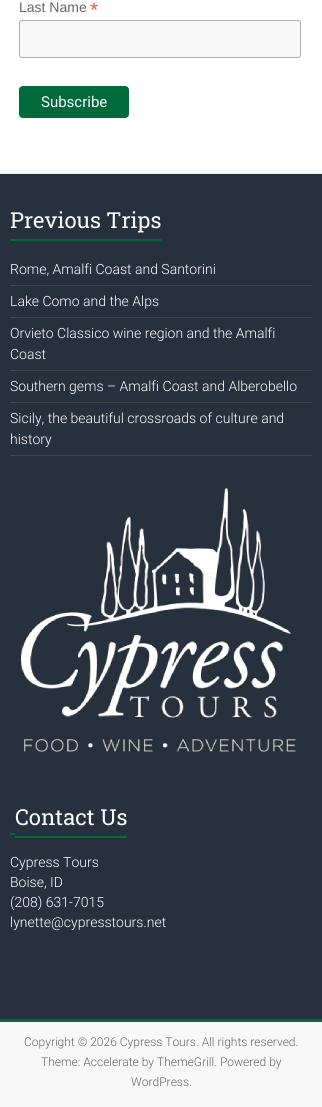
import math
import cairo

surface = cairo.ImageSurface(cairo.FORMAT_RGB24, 322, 1107)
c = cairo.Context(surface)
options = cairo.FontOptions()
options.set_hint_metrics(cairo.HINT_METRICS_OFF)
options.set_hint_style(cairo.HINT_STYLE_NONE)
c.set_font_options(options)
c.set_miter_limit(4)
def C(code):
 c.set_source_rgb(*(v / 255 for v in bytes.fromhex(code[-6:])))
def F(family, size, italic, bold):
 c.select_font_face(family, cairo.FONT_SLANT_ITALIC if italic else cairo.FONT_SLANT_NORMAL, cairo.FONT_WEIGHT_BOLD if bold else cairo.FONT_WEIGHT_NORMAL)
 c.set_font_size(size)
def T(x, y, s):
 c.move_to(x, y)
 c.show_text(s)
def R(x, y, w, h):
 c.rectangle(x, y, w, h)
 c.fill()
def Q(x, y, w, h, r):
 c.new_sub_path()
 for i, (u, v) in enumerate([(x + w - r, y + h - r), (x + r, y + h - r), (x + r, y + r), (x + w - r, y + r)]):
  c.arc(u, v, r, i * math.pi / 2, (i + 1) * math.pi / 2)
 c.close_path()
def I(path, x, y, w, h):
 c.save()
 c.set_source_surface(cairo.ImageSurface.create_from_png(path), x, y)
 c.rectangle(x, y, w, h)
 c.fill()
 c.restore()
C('ffffff')
c.paint()
F('Liberation Sans',14,0,0)
C('666666')
T(19,12,'Last Name')
F('Liberation Sans',21,0,0)
C('e85c41')
T(90,17,'*')
C('f8f8f8')
Q(19.5,20.5,281,37,2.5)
c.fill_preserve()
C('abb0b2')
c.set_line_width(1)
c.stroke()
C('006a3a')
Q(19,86,110,32,4)
c.fill()
F('Roboto',15,0,0)
C('ffffff')
T(41,107,'Subscribe')
C('27313d')
R(0,174,322,845)
C('f2f2f2')
R(0,173,322,1)
F('Roboto Slab',22,0,0)
C('ffffff')
T(10,228,'Previous Trips')
C('006a3a')
R(10,239,151,2)
C('444444')
R(10,285,302,1)
F('Roboto Light',14,0,0)
C('ffffff')
T(10,274,'Rome, Amalfi Coast and Santorini')
C('444444')
R(10,317,302,1)
C('ffffff')
T(10,306,'Lake Como and the Alps')
C('444444')
R(10,370,302,1)
C('ffffff')
T(10,338,'Orvieto Classico wine region and the Amalfi')
T(10,359,'Coast')
C('444444')
R(10,402,302,1)
C('ffffff')
T(10,391,'Southern gems – Amalfi Coast and Alberobello')
C('444444')
R(10,455,302,1)
C('ffffff')
T(10,423,'Sicily, the beautiful crossroads of culture and')
T(10,444,'history')
I('1.png',21,488,275,264)
F('Roboto Slab',22,0,0)
T(15,825,'Contact Us')
C('006a3a')
R(10,833,5,2)
R(15,836,112,2)
F('Roboto Light',14,0,0)
C('ffffff')
T(10,867,'Cypress Tours')
T(10,887,'Boise, ID')
T(10,907,'(208) 631-7015')
T(10,927,'lynette@cypresstours.net')
C('f8f8f8')
R(0,1022,322,85)
C('006a3a')
R(0,1019,322,3)
F('Roboto Light',12,0,0)
C('666666')
T(24,1046,'Copyright © 2026 Cypress Tours. All rights reserved.')
T(41,1066,'Theme: Accelerate by ThemeGrill. Powered by')
T(131,1086,'WordPress.')
surface.write_to_png('o.png')
